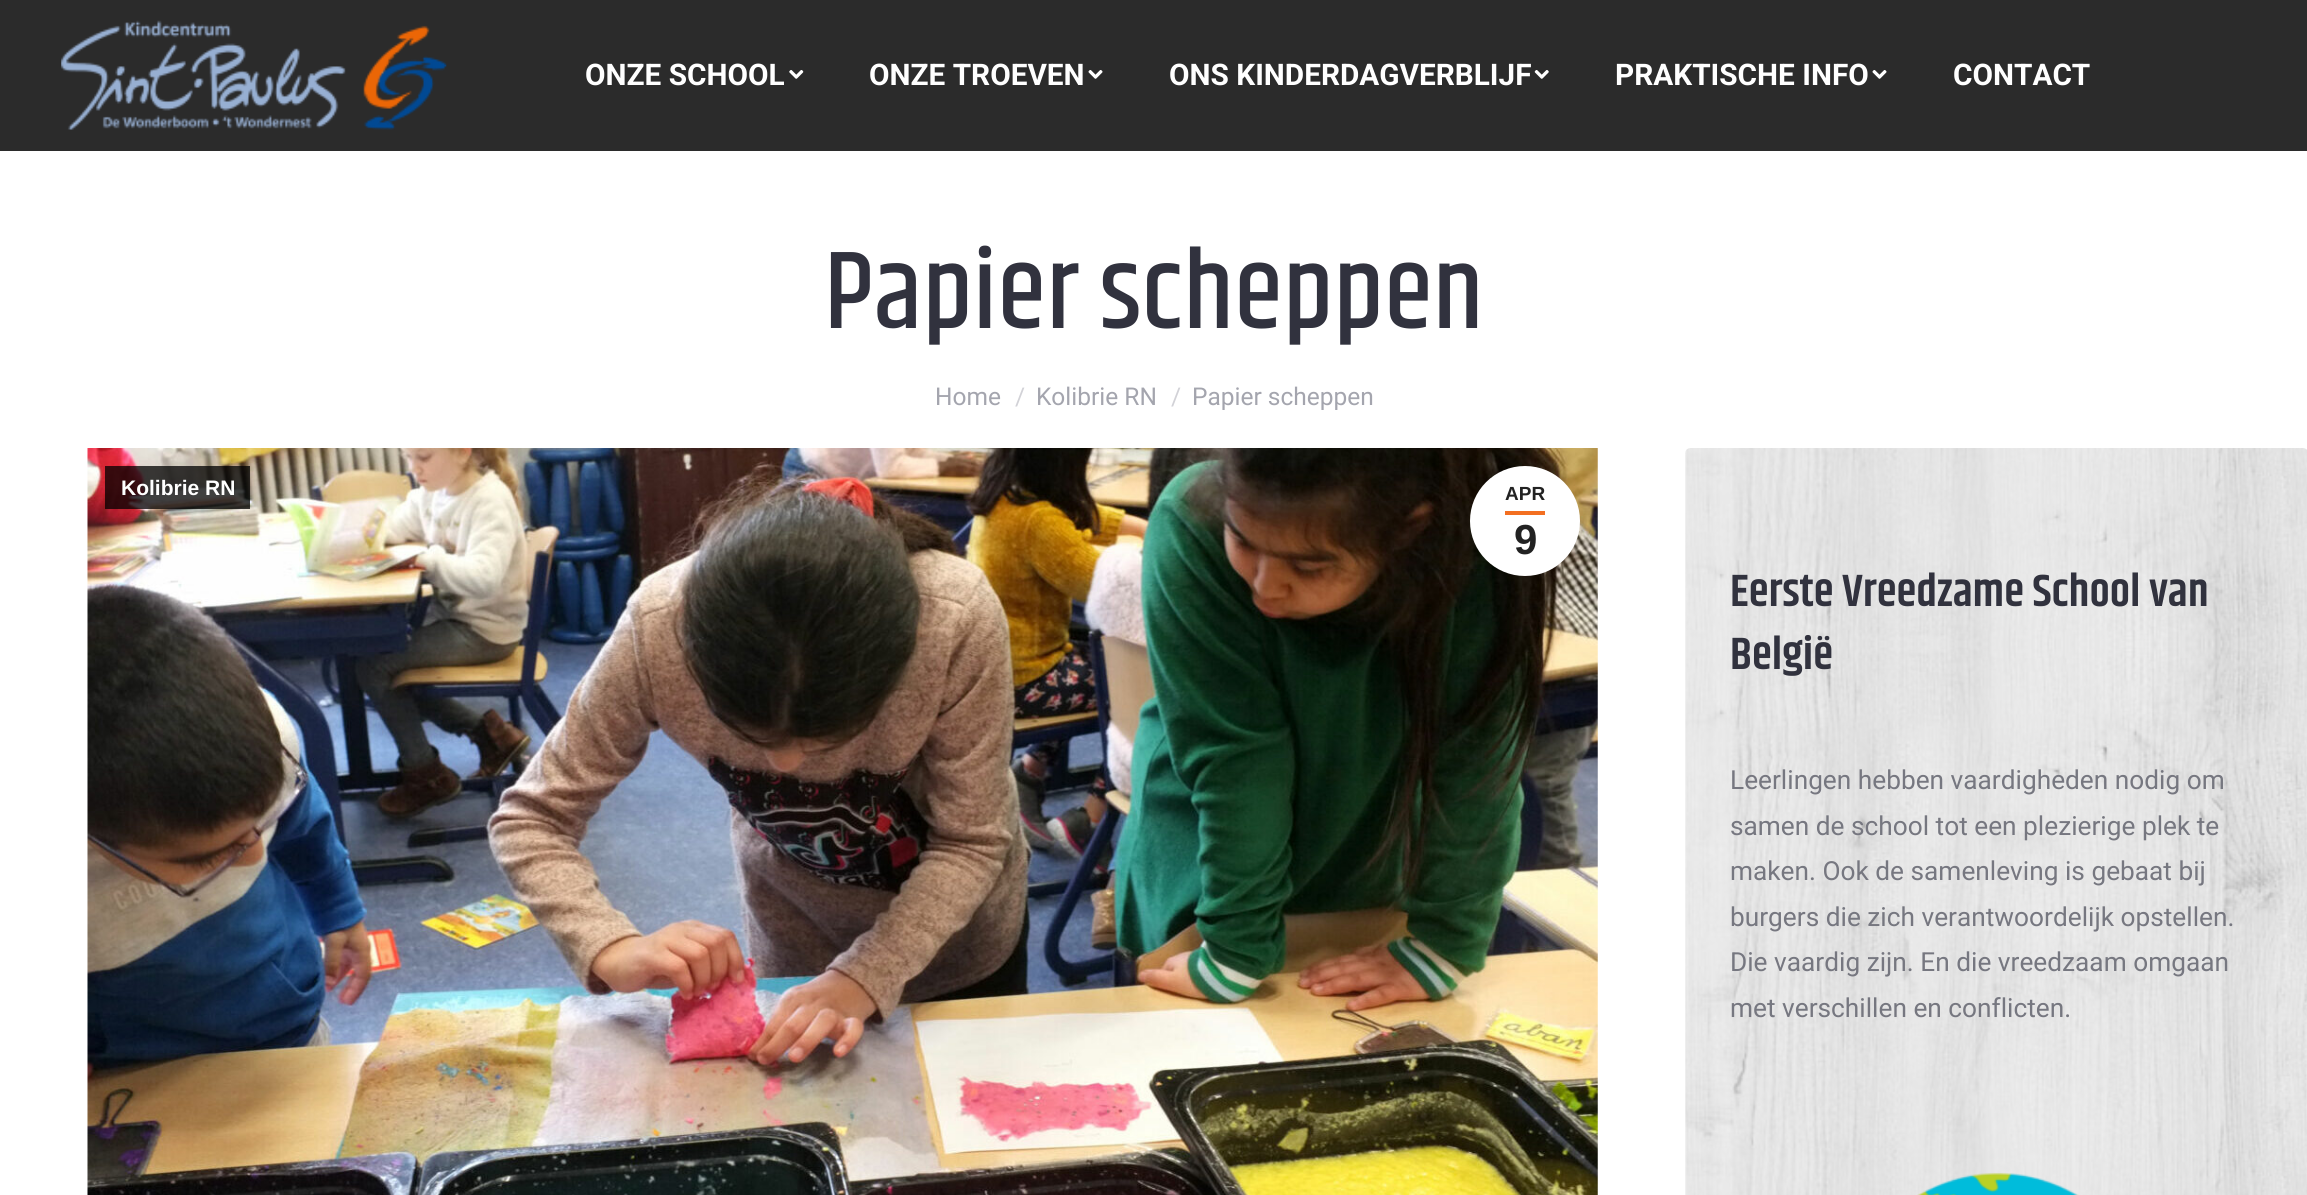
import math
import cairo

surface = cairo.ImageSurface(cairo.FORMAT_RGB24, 2307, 1195)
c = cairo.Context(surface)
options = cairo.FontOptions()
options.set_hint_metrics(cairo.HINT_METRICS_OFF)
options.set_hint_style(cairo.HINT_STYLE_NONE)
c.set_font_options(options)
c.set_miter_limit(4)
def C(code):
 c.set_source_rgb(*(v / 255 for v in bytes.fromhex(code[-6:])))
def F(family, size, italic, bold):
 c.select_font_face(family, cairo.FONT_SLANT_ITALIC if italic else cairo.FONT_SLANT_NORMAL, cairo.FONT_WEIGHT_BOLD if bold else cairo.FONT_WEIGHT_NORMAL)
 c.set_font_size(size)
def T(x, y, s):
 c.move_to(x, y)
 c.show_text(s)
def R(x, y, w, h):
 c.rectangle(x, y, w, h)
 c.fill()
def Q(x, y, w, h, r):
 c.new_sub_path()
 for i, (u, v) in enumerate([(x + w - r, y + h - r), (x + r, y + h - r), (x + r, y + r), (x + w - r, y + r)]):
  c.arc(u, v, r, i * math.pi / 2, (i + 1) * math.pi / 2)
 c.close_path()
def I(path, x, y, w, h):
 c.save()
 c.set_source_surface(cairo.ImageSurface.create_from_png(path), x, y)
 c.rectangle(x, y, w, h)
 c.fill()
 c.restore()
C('ffffff')
c.paint()
C('2b2b2b')
R(0,0,2307,151)
I('1.png',61,20,386,110)
F('Roboto',29.75,0,1)
C('ffffff')
T(585,85,'ONZE SCHOOL')
I('2.png',789,70,15,9)
T(869,85,'ONZE TROEVEN')
I('3.png',1088,70,15,9)
T(1169,85,'ONS KINDERDAGVERBLIJF')
I('4.png',1534,70,15,9)
T(1615,85,'PRAKTISCHE INFO')
I('3.png',1872,70,15,9)
T(1953,85,'CONTACT')
F('Khand Medium',112,0,0)
C('31323e')
T(824,328,'Papier scheppen')
F('Roboto',24.5,0,0)
C('a4a5ae')
T(935,405,'Home')
C('d2d2d7')
T(1015,405,'/')
C('a4a5ae')
T(1036,405,'Kolibrie RN')
C('d2d2d7')
T(1171,405,'/')
C('a4a5ae')
T(1192,405,'Papier scheppen')
I('5.png',87,448,1511,747)
c.set_source_rgba(0,0,0,0.75)
R(105,466,145,43)
F('Liberation Sans',21,0,1)
C('ffffff')
T(121,495,'Kolibrie RN')
c.new_path()
c.arc(1525,521,55,0,2 * math.pi)
c.fill()
F('Liberation Sans',19,0,1)
C('222222')
T(1505,500,'APR')
C('f36f21')
R(1505,511,40,4)
F('Liberation Sans',42,0,1)
C('222222')
T(1514,554,'9')
C('f7f7f7')
Q(1685,448,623,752,5)
c.fill()
I('6.png',1685,448,622,747)
F('Khand SemiBold',45.5,0,0)
C('31323e')
T(1730,606,'Eerste Vreedzame School van')
T(1730,669,'België')
F('Roboto',26.25,0,0)
C('767780')
T(1730,789,'Leerlingen hebben vaardigheden nodig om')
T(1730,835,'samen de school tot een plezierige plek te')
T(1730,880,'maken. Ook de samenleving is gebaat bij')
T(1730,926,'burgers die zich verantwoordelijk opstellen.')
T(1730,971,'Die vaardig zijn. En die vreedzaam omgaan')
T(1730,1017,'met verschillen en conflicten.')
I('7.png',1917,1172,162,23)
surface.write_to_png('o.png')
